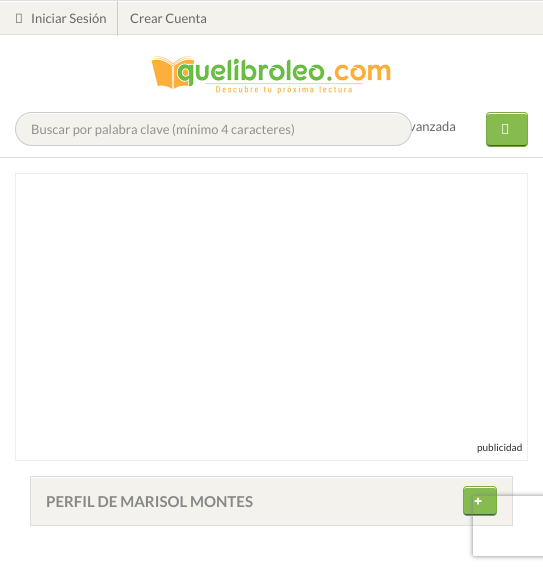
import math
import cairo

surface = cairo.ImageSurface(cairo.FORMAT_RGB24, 543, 570)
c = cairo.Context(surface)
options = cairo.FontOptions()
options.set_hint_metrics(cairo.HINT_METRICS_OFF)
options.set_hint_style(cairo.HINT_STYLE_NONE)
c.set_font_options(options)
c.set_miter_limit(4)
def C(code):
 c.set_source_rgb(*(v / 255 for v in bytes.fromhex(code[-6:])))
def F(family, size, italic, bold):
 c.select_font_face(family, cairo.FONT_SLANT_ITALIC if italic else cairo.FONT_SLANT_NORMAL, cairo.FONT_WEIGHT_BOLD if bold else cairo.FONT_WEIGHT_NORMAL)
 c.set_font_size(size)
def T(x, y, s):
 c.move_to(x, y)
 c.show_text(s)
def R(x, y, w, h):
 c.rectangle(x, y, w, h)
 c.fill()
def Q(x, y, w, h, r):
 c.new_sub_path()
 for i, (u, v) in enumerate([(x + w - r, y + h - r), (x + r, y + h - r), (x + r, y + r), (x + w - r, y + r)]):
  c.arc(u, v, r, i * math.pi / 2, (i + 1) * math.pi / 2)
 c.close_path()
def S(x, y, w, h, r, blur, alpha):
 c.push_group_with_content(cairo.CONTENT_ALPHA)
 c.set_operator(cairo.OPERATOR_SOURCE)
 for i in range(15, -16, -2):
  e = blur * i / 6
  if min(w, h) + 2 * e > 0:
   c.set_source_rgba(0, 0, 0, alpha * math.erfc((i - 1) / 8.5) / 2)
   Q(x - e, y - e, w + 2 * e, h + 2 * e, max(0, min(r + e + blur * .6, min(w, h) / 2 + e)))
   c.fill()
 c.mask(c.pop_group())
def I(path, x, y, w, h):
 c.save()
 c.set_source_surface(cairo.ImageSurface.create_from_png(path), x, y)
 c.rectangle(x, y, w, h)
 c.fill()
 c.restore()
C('ffffff')
c.paint()
C('dddddd')
R(0,157,543,1)
C('f3f2ed')
R(0,2,543,32)
C('dddddd')
R(0,0,543,1)
R(0,34,543,1)
C('cccccc')
R(117,1,1,35)
I('1.png',16,13,6,10)
F('Lato',13,0,0)
C('666666')
T(31,23,'Iniciar Sesión')
T(130,23,'Crear Cuenta')
I('2.png',151,56,240,39)
T(409,131,'vanzada')
C('f3f2ed')
Q(15,112,397,34,17)
c.fill()
C('ffffff')
c.new_path()
c.move_to(32,114)
c.line_to(395,114)
c.curve_to(404,114,411,121,411,129)
c.curve_to(411,121,404,113,395,113)
c.line_to(32,113)
c.curve_to(23,113,16,121,16,129)
c.curve_to(16,121,23,114,32,114)
c.close_path()
c.fill()
Q(15.5,112.5,396,33,16.5)
C('cccccc')
c.set_line_width(1)
c.stroke()
C('92918e')
T(31,134,'Buscar por palabra clave (mínimo 4 caracteres)')
C('86bb50')
Q(486,112,42,35,4)
c.fill()
C('ffffff')
c.new_path()
c.move_to(490,114)
c.line_to(524,114)
c.curve_to(526,114,527,115,527,116)
c.curve_to(527,112,522,113,519,113)
c.line_to(495,113)
c.curve_to(492,113,487,112,487,116)
c.curve_to(487,115,488,114,490,114)
c.close_path()
c.fill()
C('435e28')
c.new_path()
c.move_to(487,142)
c.curve_to(487,147,490,146,495,146)
c.line_to(519,146)
c.curve_to(524,146,527,147,527,142)
c.curve_to(527,144,526,145,524,145)
c.line_to(490,145)
c.curve_to(488,145,487,144,487,142)
c.close_path()
c.fill()
Q(486.5,112.5,41,34,3.5)
c.set_source_rgba(0,0,0,0.1)
c.stroke()
I('3.png',502,124,7,10)
c.rectangle(15.5,173.5,512,287)
C('eeeeee')
c.stroke()
F('Lato',10,0,0)
C('292b2c')
T(477,451,'publicidad')
C('f3f2ed')
R(31,478,481,47)
c.rectangle(30.5,476.5,482,49)
C('dddddd')
c.stroke()
F('Lato',15,0,1)
C('888888')
T(46,507,'PERFIL DE MARISOL MONTES')
C('86bb50')
Q(463,486,34,30,4)
c.fill()
C('ffffff')
c.new_path()
c.move_to(466,488)
c.line_to(494,488)
c.curve_to(495,488,496,489,496,490)
c.curve_to(496,486,492,487,489,487)
c.line_to(471,487)
c.curve_to(468,487,464,486,464,490)
c.curve_to(464,489,465,488,466,488)
c.close_path()
c.fill()
C('435e28')
c.new_path()
c.move_to(464,512)
c.curve_to(464,516,468,515,471,515)
c.line_to(489,515)
c.curve_to(492,515,496,516,496,512)
c.curve_to(496,513,495,514,494,514)
c.line_to(466,514)
c.curve_to(465,514,464,513,464,512)
c.close_path()
c.fill()
Q(463.5,486.5,33,29,3.5)
c.set_source_rgba(0,0,0,0.1)
c.stroke()
F('Noto Sans Black',14,0,0)
C('ffffff')
T(474,506,'+')
c.save()
c.set_fill_rule(cairo.FILL_RULE_EVEN_ODD)
c.new_path()
c.move_to(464,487)
c.line_to(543,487)
c.line_to(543,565)
c.line_to(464,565)
c.close_path()
c.move_to(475,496)
c.line_to(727,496)
c.curve_to(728,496,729,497,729,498)
c.line_to(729,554)
c.curve_to(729,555,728,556,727,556)
c.line_to(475,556)
c.curve_to(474,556,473,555,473,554)
c.line_to(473,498)
c.curve_to(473,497,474,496,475,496)
c.close_path()
c.clip()
C('808080')
S(473,496,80,60,2,2.5,1)
c.restore()
surface.write_to_png('o.png')
